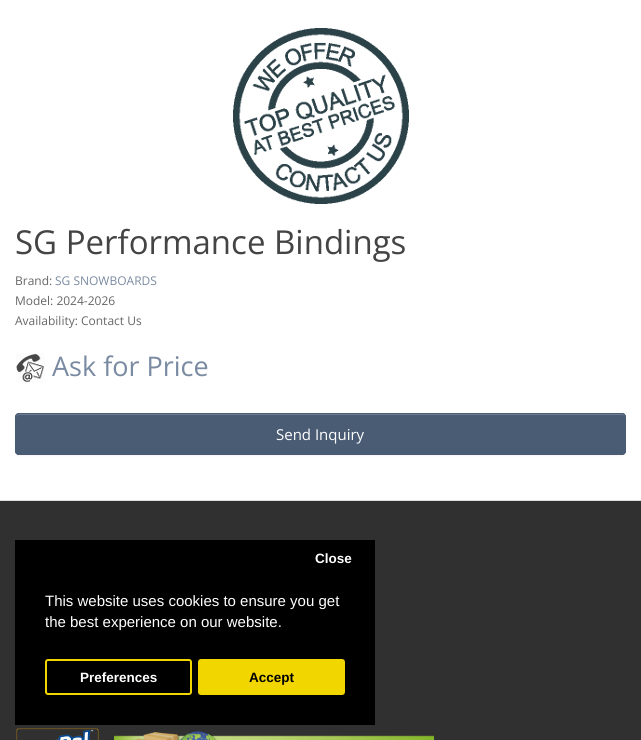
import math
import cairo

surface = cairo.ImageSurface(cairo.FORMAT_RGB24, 641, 740)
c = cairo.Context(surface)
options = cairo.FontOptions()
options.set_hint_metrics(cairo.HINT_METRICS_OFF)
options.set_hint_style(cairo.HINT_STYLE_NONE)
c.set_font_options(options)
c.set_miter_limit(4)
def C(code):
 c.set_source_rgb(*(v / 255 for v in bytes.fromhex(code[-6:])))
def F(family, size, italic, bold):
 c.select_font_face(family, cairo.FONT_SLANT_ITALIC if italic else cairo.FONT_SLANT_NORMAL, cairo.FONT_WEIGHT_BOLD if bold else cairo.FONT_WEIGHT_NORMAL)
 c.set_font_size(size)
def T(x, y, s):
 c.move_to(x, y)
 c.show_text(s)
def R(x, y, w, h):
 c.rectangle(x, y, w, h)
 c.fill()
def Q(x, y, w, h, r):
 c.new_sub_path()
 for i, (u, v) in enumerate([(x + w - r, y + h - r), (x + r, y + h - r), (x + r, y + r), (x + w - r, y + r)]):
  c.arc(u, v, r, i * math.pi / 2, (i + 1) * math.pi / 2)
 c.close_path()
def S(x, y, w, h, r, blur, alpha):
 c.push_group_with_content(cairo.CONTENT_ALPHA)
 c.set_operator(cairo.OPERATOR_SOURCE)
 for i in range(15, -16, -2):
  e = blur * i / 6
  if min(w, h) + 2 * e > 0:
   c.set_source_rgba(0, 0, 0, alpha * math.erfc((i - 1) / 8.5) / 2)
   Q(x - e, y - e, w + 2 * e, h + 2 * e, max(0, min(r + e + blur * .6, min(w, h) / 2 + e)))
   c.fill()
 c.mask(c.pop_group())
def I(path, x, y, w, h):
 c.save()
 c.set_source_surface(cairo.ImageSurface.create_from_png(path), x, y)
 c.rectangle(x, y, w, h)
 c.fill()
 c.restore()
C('ffffff')
c.paint()
I('1.png',233,28,176,176)
F('Open Sans',33,0,0)
C('444444')
T(15,254,'SG Performance Bindings')
F('Open Sans',12,0,0)
C('666666')
T(15,285,'Brand:')
C('7a8aa1')
T(55,285,'SG SNOWBOARDS')
C('666666')
T(15,305,'Model: 2024-2026')
T(15,325,'Availability: Contact Us')
I('2.png',16,353,29,30)
F('Open Sans',27,0,0)
C('7a8aa1')
T(52,376,'Ask for Price')
C('000000')
S(15,414,611,42,4,1,.05)
C('4a5c74')
Q(15,413,611,42,4)
c.fill()
C('6e7d90')
c.new_path()
c.move_to(19,415)
c.line_to(622,415)
c.curve_to(624,415,625,416,625,418)
c.line_to(625,417)
c.curve_to(625,415,624,414,622,414)
c.line_to(19,414)
c.curve_to(17,414,16,415,16,417)
c.line_to(16,418)
c.curve_to(16,416,17,415,19,415)
c.close_path()
c.fill()
Q(15.5,413.5,610,41,3.5)
C('4a5c74')
c.set_line_width(1)
c.stroke()
F('Open Sans',15,0,0)
C('ffffff')
T(276,440,'Send Inquiry')
C('303030')
R(0,501,641,239)
C('dddddd')
R(0,500,641,1)
I('3.png',16,728,83,12)
I('4.png',114,731,320,9)
C('000000')
R(15,540,360,185)
F('Liberation Sans',13.5,0,1)
C('ffffff')
T(315,563,'Close')
Q(46,660,145,34,2)
C('f1d600')
c.set_line_width(2)
c.stroke()
C('ffffff')
T(80,682,'Preferences')
C('f1d600')
Q(198,659,147,36,3)
c.fill()
C('000000')
T(249,682,'Accept')
F('Liberation Sans',15,0,0)
C('ffffff')
T(45,606,'This website uses cookies to ensure you get')
T(45,627,'the best experience on our website.')
surface.write_to_png('o.png')
